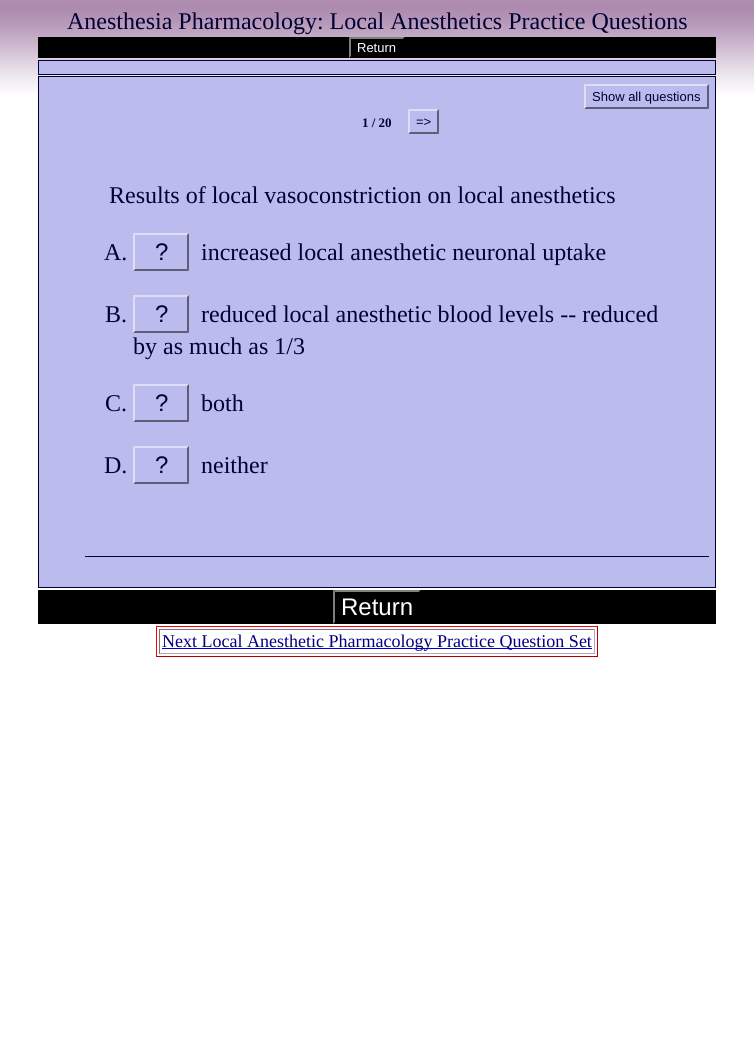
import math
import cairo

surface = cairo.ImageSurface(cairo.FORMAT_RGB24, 754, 1051)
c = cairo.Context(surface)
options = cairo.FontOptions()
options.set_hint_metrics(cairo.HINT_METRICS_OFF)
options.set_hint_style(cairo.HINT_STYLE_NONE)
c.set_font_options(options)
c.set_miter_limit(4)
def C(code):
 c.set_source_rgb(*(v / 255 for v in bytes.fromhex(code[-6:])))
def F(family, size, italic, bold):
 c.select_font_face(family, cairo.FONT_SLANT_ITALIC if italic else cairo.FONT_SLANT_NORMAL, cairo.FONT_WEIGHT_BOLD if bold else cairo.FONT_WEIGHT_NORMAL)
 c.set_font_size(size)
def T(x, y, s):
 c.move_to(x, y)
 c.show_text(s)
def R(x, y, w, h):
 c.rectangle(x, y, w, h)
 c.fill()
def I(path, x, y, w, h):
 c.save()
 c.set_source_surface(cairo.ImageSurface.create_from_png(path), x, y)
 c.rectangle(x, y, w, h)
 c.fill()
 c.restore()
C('ffffff')
c.paint()
I('1.png',0,0,754,94)
F('Liberation Serif',24,0,0)
C('000033')
T(67,29,'Anesthesia Pharmacology: Local Anesthetics Practice Questions')
C('000000')
R(38,37,678,21)
C('7f7f7f')
c.new_path()
c.move_to(349,37)
c.line_to(405,37)
c.line_to(403,39)
c.line_to(351,39)
c.close_path()
c.fill()
C('000000')
c.new_path()
c.move_to(405,37)
c.line_to(405,58)
c.line_to(403,56)
c.line_to(403,39)
c.close_path()
c.fill()
C('7f7f7f')
c.new_path()
c.move_to(349,58)
c.line_to(349,37)
c.line_to(351,39)
c.line_to(351,56)
c.close_path()
c.fill()
F('Liberation Sans',13,0,0)
C('ffffff')
T(357,52,'Return')
C('bbbbee')
c.rectangle(38.5,60.5,677,14)
c.fill_preserve()
C('000033')
c.set_line_width(1)
c.stroke()
C('bbbbee')
c.rectangle(38.5,76.5,677,511)
c.fill_preserve()
C('000033')
c.stroke()
C('ddddf6')
c.new_path()
c.move_to(584,84)
c.line_to(709,84)
c.line_to(707,86)
c.line_to(586,86)
c.close_path()
c.fill()
C('5d5d77')
c.new_path()
c.move_to(709,84)
c.line_to(709,109)
c.line_to(707,107)
c.line_to(707,86)
c.close_path()
c.fill()
c.new_path()
c.move_to(709,109)
c.line_to(584,109)
c.line_to(586,107)
c.line_to(707,107)
c.close_path()
c.fill()
C('ddddf6')
c.new_path()
c.move_to(584,109)
c.line_to(584,84)
c.line_to(586,86)
c.line_to(586,107)
c.close_path()
c.fill()
C('000033')
T(592,101,'Show all questions')
F('Liberation Serif',13,0,1)
T(362,127,'1 / 20')
C('ddddf6')
c.new_path()
c.move_to(408,109)
c.line_to(439,109)
c.line_to(437,111)
c.line_to(410,111)
c.close_path()
c.fill()
C('5d5d77')
c.new_path()
c.move_to(439,109)
c.line_to(439,134)
c.line_to(437,132)
c.line_to(437,111)
c.close_path()
c.fill()
c.new_path()
c.move_to(439,134)
c.line_to(408,134)
c.line_to(410,132)
c.line_to(437,132)
c.close_path()
c.fill()
C('ddddf6')
c.new_path()
c.move_to(408,134)
c.line_to(408,109)
c.line_to(410,111)
c.line_to(410,132)
c.close_path()
c.fill()
F('Liberation Sans',13,0,0)
C('000033')
T(416,126,'=>')
R(85,556,624,1)
F('Liberation Serif',24,0,0)
T(109,203,'Results of local vasoconstriction on local anesthetics')
T(104,260,'A.')
C('ddddf6')
c.new_path()
c.move_to(133,233)
c.line_to(189,233)
c.line_to(187,235)
c.line_to(135,235)
c.close_path()
c.fill()
C('5d5d77')
c.new_path()
c.move_to(189,233)
c.line_to(189,271)
c.line_to(187,269)
c.line_to(187,235)
c.close_path()
c.fill()
c.new_path()
c.move_to(189,271)
c.line_to(133,271)
c.line_to(135,269)
c.line_to(187,269)
c.close_path()
c.fill()
C('ddddf6')
c.new_path()
c.move_to(133,271)
c.line_to(133,233)
c.line_to(135,235)
c.line_to(135,269)
c.close_path()
c.fill()
F('Liberation Sans',24,0,0)
C('000033')
T(155,260,'?')
F('Liberation Serif',24,0,0)
T(201,260,'increased local anesthetic neuronal uptake')
T(105,322,'B.')
C('ddddf6')
c.new_path()
c.move_to(133,295)
c.line_to(189,295)
c.line_to(187,297)
c.line_to(135,297)
c.close_path()
c.fill()
C('5d5d77')
c.new_path()
c.move_to(189,295)
c.line_to(189,333)
c.line_to(187,331)
c.line_to(187,297)
c.close_path()
c.fill()
c.new_path()
c.move_to(189,333)
c.line_to(133,333)
c.line_to(135,331)
c.line_to(187,331)
c.close_path()
c.fill()
C('ddddf6')
c.new_path()
c.move_to(133,333)
c.line_to(133,295)
c.line_to(135,297)
c.line_to(135,331)
c.close_path()
c.fill()
F('Liberation Sans',24,0,0)
C('000033')
T(155,322,'?')
F('Liberation Serif',24,0,0)
T(201,322,'reduced local anesthetic blood levels -- reduced')
T(133,354,'by as much as 1/3')
T(105,411,'C.')
C('ddddf6')
c.new_path()
c.move_to(133,384)
c.line_to(189,384)
c.line_to(187,386)
c.line_to(135,386)
c.close_path()
c.fill()
C('5d5d77')
c.new_path()
c.move_to(189,384)
c.line_to(189,422)
c.line_to(187,420)
c.line_to(187,386)
c.close_path()
c.fill()
c.new_path()
c.move_to(189,422)
c.line_to(133,422)
c.line_to(135,420)
c.line_to(187,420)
c.close_path()
c.fill()
C('ddddf6')
c.new_path()
c.move_to(133,422)
c.line_to(133,384)
c.line_to(135,386)
c.line_to(135,420)
c.close_path()
c.fill()
F('Liberation Sans',24,0,0)
C('000033')
T(155,411,'?')
F('Liberation Serif',24,0,0)
T(201,411,'both')
T(104,473,'D.')
C('ddddf6')
c.new_path()
c.move_to(133,446)
c.line_to(189,446)
c.line_to(187,448)
c.line_to(135,448)
c.close_path()
c.fill()
C('5d5d77')
c.new_path()
c.move_to(189,446)
c.line_to(189,484)
c.line_to(187,482)
c.line_to(187,448)
c.close_path()
c.fill()
c.new_path()
c.move_to(189,484)
c.line_to(133,484)
c.line_to(135,482)
c.line_to(187,482)
c.close_path()
c.fill()
C('ddddf6')
c.new_path()
c.move_to(133,484)
c.line_to(133,446)
c.line_to(135,448)
c.line_to(135,482)
c.close_path()
c.fill()
F('Liberation Sans',24,0,0)
C('000033')
T(155,473,'?')
F('Liberation Serif',24,0,0)
T(201,473,'neither')
C('000000')
R(38,590,678,34)
C('7f7f7f')
c.new_path()
c.move_to(333,590)
c.line_to(421,590)
c.line_to(419,592)
c.line_to(335,592)
c.close_path()
c.fill()
C('000000')
c.new_path()
c.move_to(421,590)
c.line_to(421,624)
c.line_to(419,622)
c.line_to(419,592)
c.close_path()
c.fill()
C('7f7f7f')
c.new_path()
c.move_to(333,624)
c.line_to(333,590)
c.line_to(335,592)
c.line_to(335,622)
c.close_path()
c.fill()
F('Liberation Sans',24,0,0)
C('ffffff')
T(341,615,'Return')
C('ff0000')
R(156,626,442,1)
C('aa0000')
R(597,626,1,31)
R(156,656,442,1)
C('ff0000')
R(156,626,1,31)
C('7a6e81')
R(159,629,436,1)
C('b7a5c1')
R(594,629,1,25)
R(159,653,436,1)
C('7a6e81')
R(159,629,1,25)
C('0000cc')
R(162,648,430,1)
F('Liberation Serif',18,0,0)
C('000080')
T(162,647,'Next Local Anesthetic Pharmacology Practice Question Set')
surface.write_to_png('o.png')
